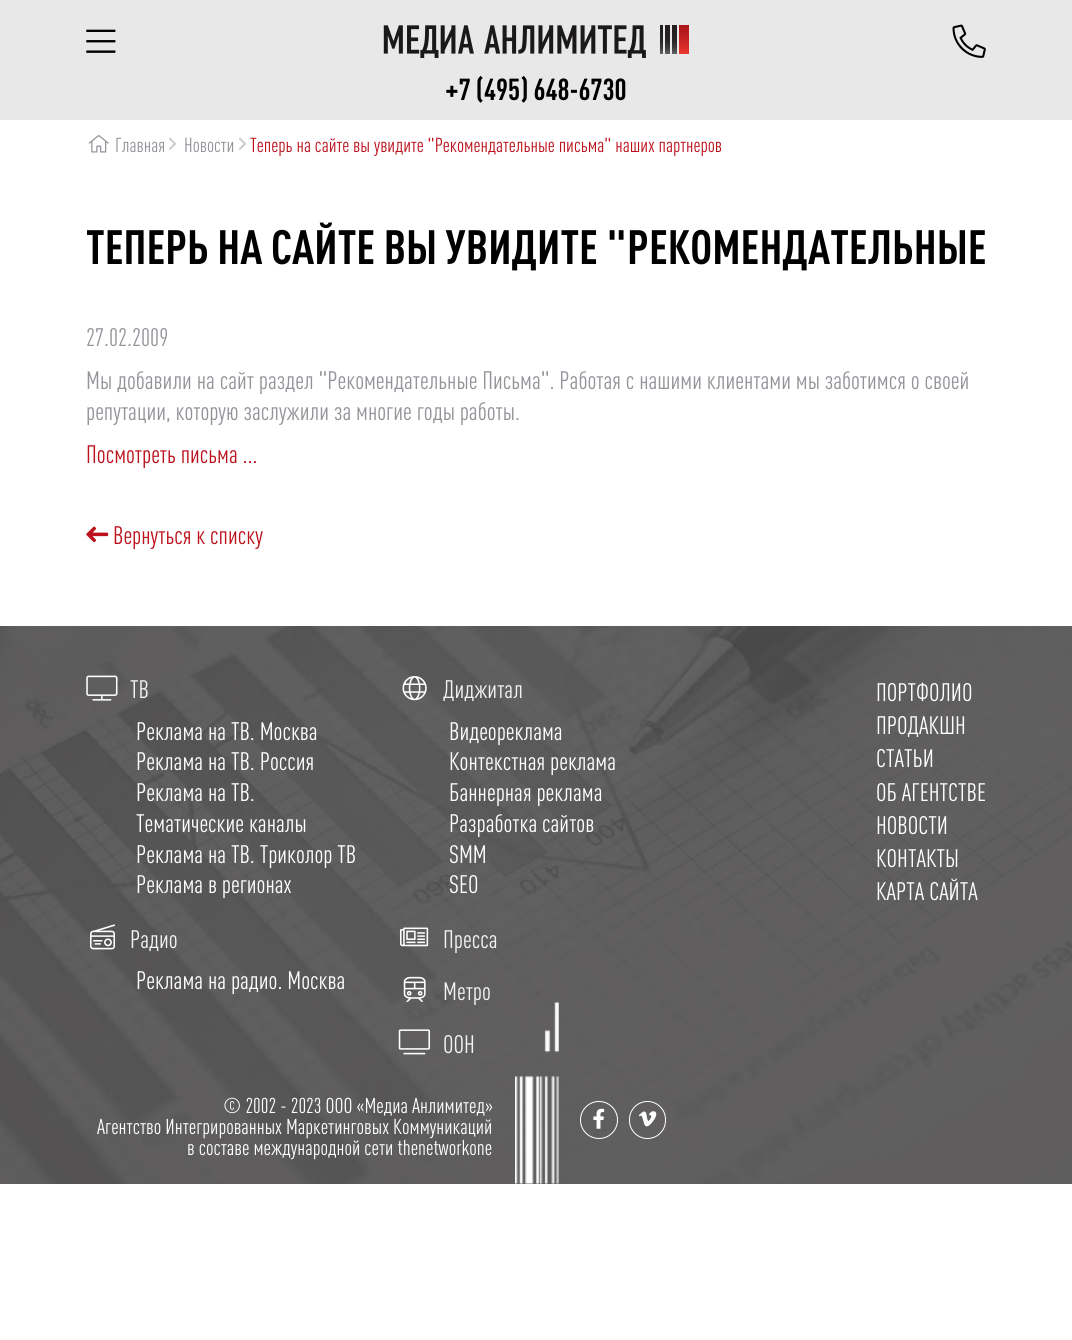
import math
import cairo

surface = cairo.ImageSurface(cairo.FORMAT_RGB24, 1072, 1340)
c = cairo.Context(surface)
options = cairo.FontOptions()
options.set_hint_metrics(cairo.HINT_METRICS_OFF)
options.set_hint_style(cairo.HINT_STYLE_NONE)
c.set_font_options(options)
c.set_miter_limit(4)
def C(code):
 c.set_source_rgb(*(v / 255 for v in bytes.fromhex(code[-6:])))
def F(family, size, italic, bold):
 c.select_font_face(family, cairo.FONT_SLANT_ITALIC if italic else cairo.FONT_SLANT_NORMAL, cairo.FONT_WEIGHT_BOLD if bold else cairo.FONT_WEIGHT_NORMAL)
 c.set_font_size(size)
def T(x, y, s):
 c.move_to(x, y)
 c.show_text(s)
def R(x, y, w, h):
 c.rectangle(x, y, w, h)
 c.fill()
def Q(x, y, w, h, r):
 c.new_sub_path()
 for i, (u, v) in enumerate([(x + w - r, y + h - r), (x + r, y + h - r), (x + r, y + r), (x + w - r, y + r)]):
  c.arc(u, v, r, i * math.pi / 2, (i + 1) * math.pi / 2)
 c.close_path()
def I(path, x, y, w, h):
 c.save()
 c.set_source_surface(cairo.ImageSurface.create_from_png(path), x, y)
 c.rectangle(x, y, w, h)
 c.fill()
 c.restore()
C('ffffff')
c.paint()
C('e8e8e8')
R(0,0,1072,120)
I('1.png',86,29,30,24)
I('2.png',383,25,306,33)
I('3.png',952,24,34,34)
F('DIN',30,0,1)
C('000000')
T(445,100,'+7 (495) 648-6730')
I('4.png',88,135,21,18)
F('DIN',20,0,0)
C('929499')
T(115,152,'Главная')
I('5.png',168,137,9,13)
T(184,152,'Новости')
I('5.png',238,137,9,13)
C('bc121d')
T(250,152,'Теперь на сайте вы увидите "Рекомендательные письма" наших партнеров')
F('DIN',47.5,0,1)
C('000000')
T(86,264,'ТЕПЕРЬ НА САЙТЕ ВЫ УВИДИТЕ "РЕКОМЕНДАТЕЛЬНЫЕ')
F('DIN',25,0,0)
C('929499')
T(86,346,'27.02.2009')
T(86,389,'Мы добавили на сайт раздел "Рекомендательные Письма". Работая с нашими клиентами мы заботимся о своей')
T(86,420,'репутации, которую заслужили за многие годы работы.')
C('bc121d')
T(86,463,'Посмотреть письма ...')
I('6.png',86,526,23,17)
T(113,544,'Вернуться к списку')
I('7.png',0,626,1072,558)
I('8.png',86,675,32,26)
C('f4f4f4')
T(130,698,'ТВ')
C('ffffff')
T(136,740,'Реклама на ТВ. Москва')
T(136,770,'Реклама на ТВ. Россия')
T(136,801,'Реклама на ТВ.')
T(136,832,'Тематические каналы')
T(136,863,'Реклама на ТВ. Триколор ТВ')
T(136,893,'Реклама в регионах')
I('9.png',90,924,25,26)
C('f4f4f4')
T(130,948,'Радио')
C('ffffff')
T(136,989,'Реклама на радио. Москва')
I('10.png',402,676,25,25)
C('f4f4f4')
T(443,698,'Диджитал')
C('ffffff')
T(449,740,'Видеореклама')
T(449,770,'Контекстная реклама')
T(449,801,'Баннерная реклама')
T(449,832,'Разработка сайтов')
T(449,863,'SMM')
T(449,893,'SEO')
I('11.png',400,927,29,20)
C('f4f4f4')
T(443,948,'Пресса')
I('12.png',403,976,23,26)
T(443,1000,'Метро')
I('13.png',398,1029,32,26)
T(443,1053,'OOH')
C('ffffff')
T(876,701,'ПОРТФОЛИО')
T(876,734,'ПРОДАКШН')
T(876,767,'СТАТЬИ')
T(876,801,'ОБ АГЕНТСТВЕ')
T(876,834,'НОВОСТИ')
T(876,867,'КОНТАКТЫ')
T(876,900,'КАРТА САЙТА')
F('DIN',21.25,0,0)
T(223,1113,'© 2002 - 2023 OOO «Медиа Анлимитед»')
T(97,1134,'Агентство Интегрированных Маркетинговых Коммуникаций')
T(187,1155,'в составе международной сети thenetworkone')
c.new_path()
c.arc(599,1120,18.5,0,2 * math.pi)
c.set_line_width(1)
c.stroke()
I('14.png',593,1108,12,21)
Q(629.5,1101.5,36,37,18)
c.stroke()
I('15.png',638,1111,19,16)
I('16.png',515,1002,44,182)
surface.write_to_png('o.png')
